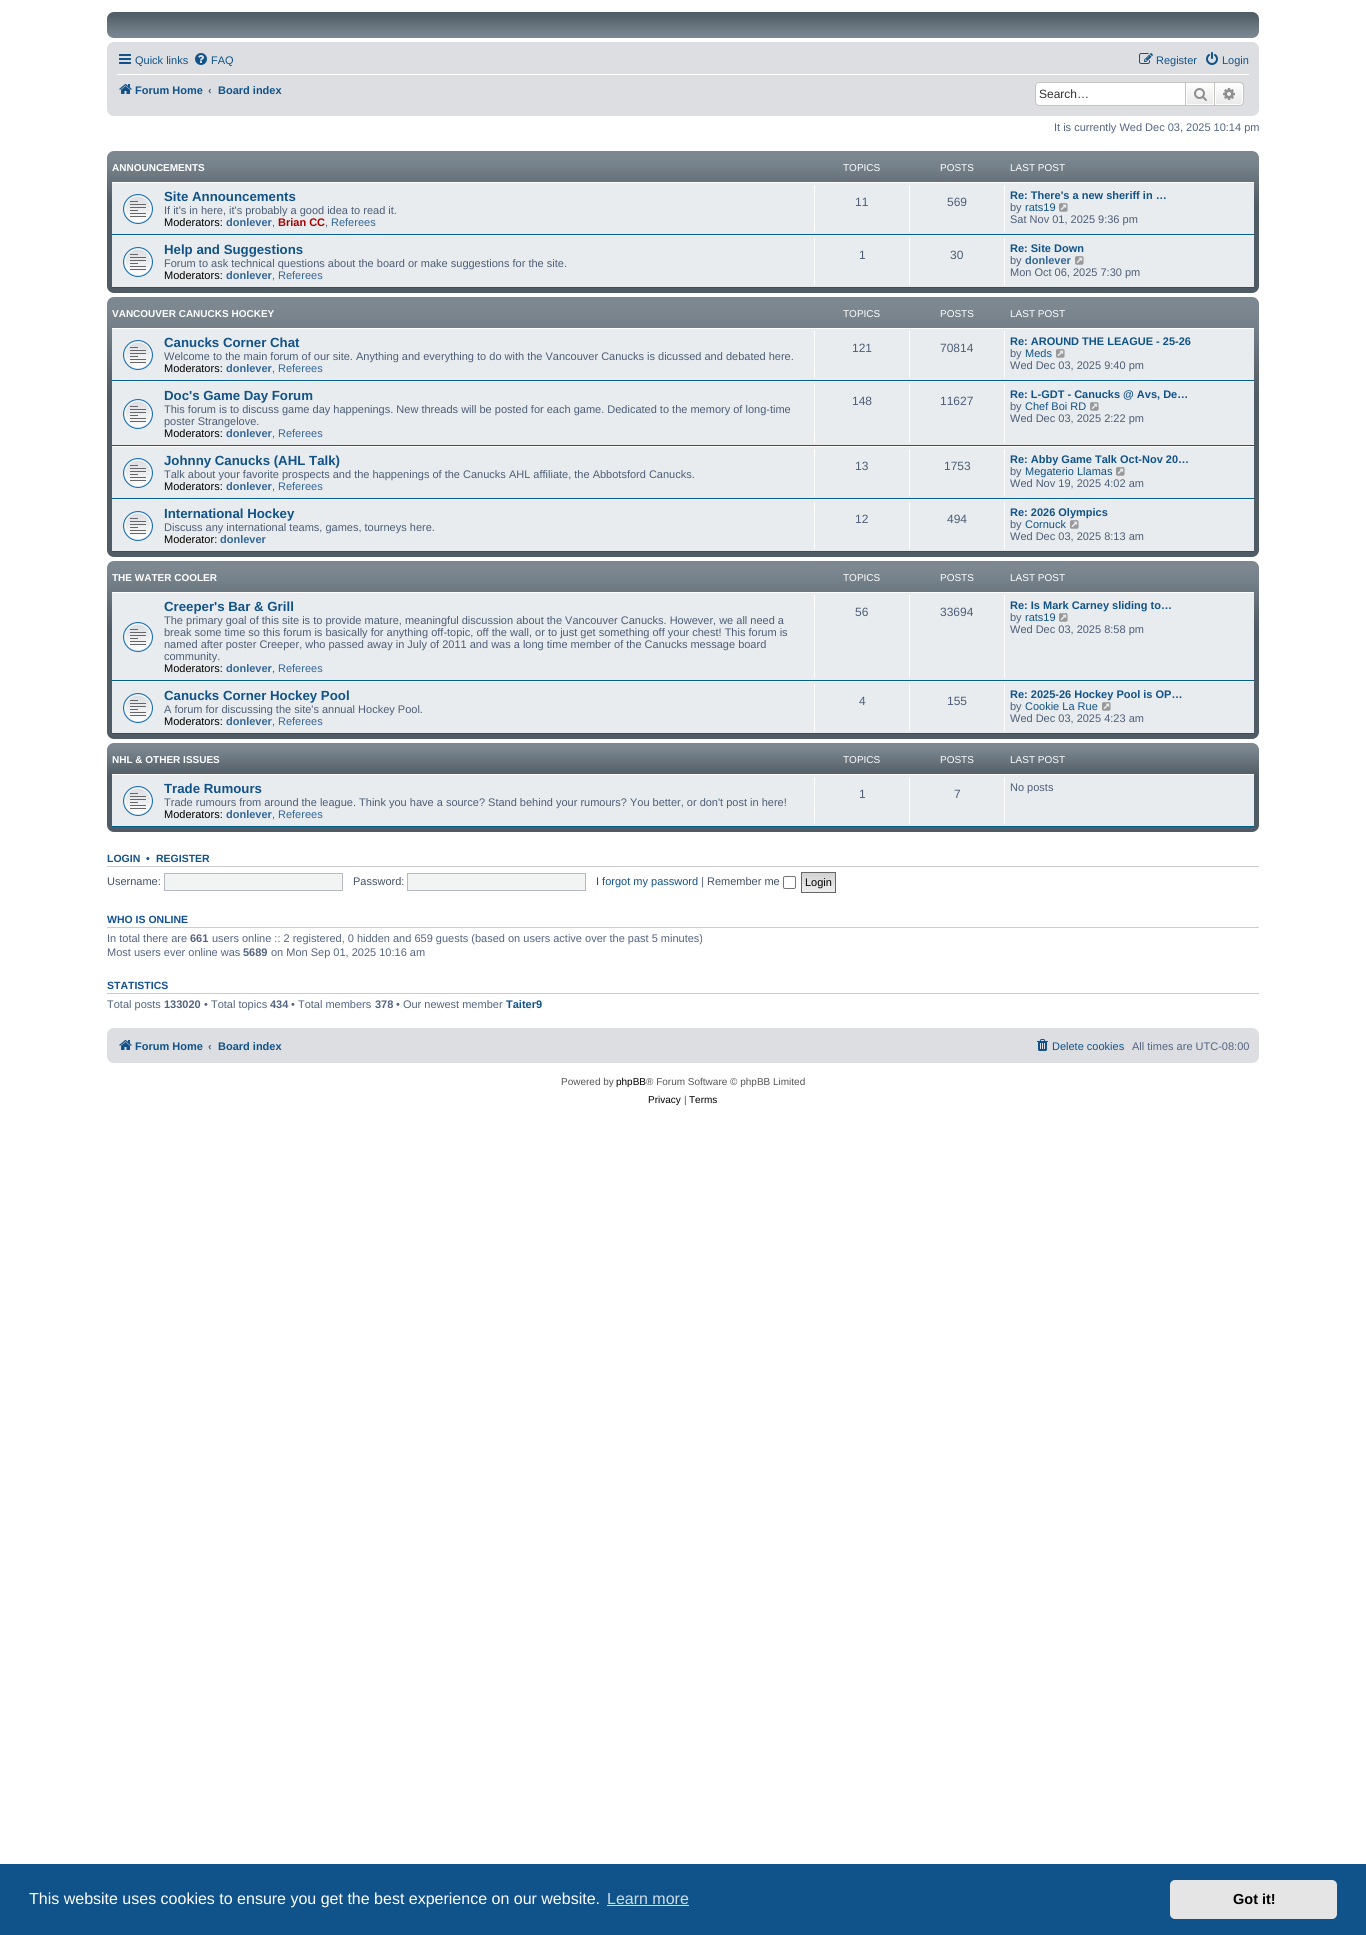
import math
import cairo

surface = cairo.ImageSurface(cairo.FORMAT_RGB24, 1366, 1935)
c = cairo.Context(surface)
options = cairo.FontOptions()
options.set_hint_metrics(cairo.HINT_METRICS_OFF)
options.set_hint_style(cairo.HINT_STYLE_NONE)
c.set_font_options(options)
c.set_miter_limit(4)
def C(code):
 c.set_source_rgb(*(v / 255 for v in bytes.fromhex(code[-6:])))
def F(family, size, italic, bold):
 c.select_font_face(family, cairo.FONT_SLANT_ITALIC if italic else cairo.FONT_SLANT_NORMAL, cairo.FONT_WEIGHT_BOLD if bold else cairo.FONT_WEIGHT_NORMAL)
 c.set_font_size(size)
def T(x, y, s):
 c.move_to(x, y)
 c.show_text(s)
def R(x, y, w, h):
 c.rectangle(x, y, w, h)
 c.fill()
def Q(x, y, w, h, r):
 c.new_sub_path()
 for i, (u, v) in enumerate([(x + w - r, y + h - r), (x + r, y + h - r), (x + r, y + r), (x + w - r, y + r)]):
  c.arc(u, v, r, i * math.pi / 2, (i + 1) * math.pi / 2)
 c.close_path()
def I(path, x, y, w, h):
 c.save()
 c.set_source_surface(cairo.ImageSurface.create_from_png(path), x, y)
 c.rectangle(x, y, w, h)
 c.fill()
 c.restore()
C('ffffff')
c.paint()
gradient = cairo.LinearGradient(683,12,683,38)
gradient.add_color_stop_rgba(0,0.431,0.467,0.498,1)
gradient.add_color_stop_rgba(.01,0.314,0.361,0.396,1)
gradient.add_color_stop_rgba(.2,0.337,0.384,0.42,1)
gradient.add_color_stop_rgba(.75,0.451,0.498,0.533,1)
gradient.add_color_stop_rgba(1,0.486,0.533,0.569,1)
c.set_source(gradient)
Q(107,12,1152,26,7)
c.fill()
C('dcdee2')
Q(107,42,1152,74,7)
c.fill()
I('1.png',119,54,12,10)
F('Liberation Sans',11,0,0)
C('105289')
T(135,64,'Quick links')
I('2.png',195,53,12,12)
T(211,64,'FAQ')
I('3.png',1139,53,14,11)
T(1156,64,'Register')
I('4.png',1206,52,12,13)
T(1222,64,'Login')
C('ffffff')
R(117,74,1132,1)
I('5.png',119,84,13,10)
F('Liberation Sans',11,0,1)
C('105289')
T(135,94,'Forum Home')
C('536482')
T(208,94,'‹')
C('105289')
T(218,94,'Board index')
C('ffffff')
c.new_path()
c.move_to(1039,83)
c.line_to(1185,83)
c.line_to(1185,105)
c.line_to(1039,105)
c.curve_to(1037.5,105,1036,103.5,1036,102)
c.line_to(1036,86)
c.curve_to(1036,84.5,1037.5,83,1039,83)
c.close_path()
c.fill()
C('c7c3bf')
c.set_fill_rule(cairo.FILL_RULE_EVEN_ODD)
c.new_path()
c.move_to(1039,82)
c.line_to(1185,82)
c.line_to(1185,106)
c.line_to(1039,106)
c.curve_to(1037,106,1035,104,1035,102)
c.line_to(1035,86)
c.curve_to(1035,84,1037,82,1039,82)
c.close_path()
c.move_to(1039,83)
c.line_to(1185,83)
c.line_to(1185,105)
c.line_to(1039,105)
c.curve_to(1037,105,1036,104,1036,102)
c.line_to(1036,86)
c.curve_to(1036,84,1037,83,1039,83)
c.close_path()
c.fill()
F('Liberation Sans',12,0,0)
C('333333')
T(1039,98,'Search…')
gradient = cairo.LinearGradient(1200,83,1200,105)
gradient.add_color_stop_rgba(0,1,1,1,1)
gradient.add_color_stop_rgba(1,0.914,0.914,0.914,1)
c.set_source(gradient)
R(1187,84,26,20)
c.rectangle(1186.5,83.5,27,21)
C('ffffff')
c.set_line_width(1)
c.stroke()
c.rectangle(1185.5,82.5,29,23)
C('c7c3bf')
c.stroke()
I('6.png',1194,88,13,13)
gradient = cairo.LinearGradient(1229,83,1229,105)
gradient.add_color_stop_rgba(0,1,1,1,1)
gradient.add_color_stop_rgba(1,0.914,0.914,0.914,1)
c.set_source(gradient)
c.new_path()
c.move_to(1215.5,83.5)
c.line_to(1240,83.5)
c.curve_to(1241.5,83.5,1242.5,84.5,1242.5,86)
c.line_to(1242.5,102)
c.curve_to(1242.5,103.5,1241.5,104.5,1240,104.5)
c.line_to(1215.5,104.5)
c.close_path()
c.fill_preserve()
C('ffffff')
c.stroke()
C('c7c3bf')
c.new_path()
c.move_to(1215,82)
c.line_to(1240,82)
c.curve_to(1242,82,1244,84,1244,86)
c.line_to(1244,102)
c.curve_to(1244,104,1242,106,1240,106)
c.line_to(1215,106)
c.close_path()
c.move_to(1215,83)
c.line_to(1240,83)
c.curve_to(1241.5,83,1243,84.5,1243,86)
c.line_to(1243,102)
c.curve_to(1243,103.5,1241.5,105,1240,105)
c.line_to(1215,105)
c.close_path()
c.fill()
I('7.png',1223,88,12,12)
F('Liberation Sans',11,0,0)
C('536482')
T(1054,131,'It is currently Wed Dec 03, 2025 10:14 pm')
gradient = cairo.LinearGradient(683,151,683,293)
gradient.add_color_stop_rgba(0,0.486,0.533,0.569,1)
gradient.add_color_stop_rgba(.04,0.486,0.529,0.565,1)
gradient.add_color_stop_rgba(.1,0.463,0.51,0.545,1)
gradient.add_color_stop_rgba(.29,0.357,0.4,0.435,1)
gradient.add_color_stop_rgba(.38,0.314,0.361,0.396,1)
gradient.add_color_stop_rgba(1,0.314,0.361,0.396,1)
c.set_source(gradient)
Q(107,151,1152,142,7)
c.fill()
F('Liberation Sans',10,0,1)
C('ffffff')
T(112,171,'ANNOUNCEMENTS')
F('Liberation Sans',10,0,0)
T(843,171,'TOPICS')
T(940,171,'POSTS')
T(1010,171,'LAST POST')
C('e8ecee')
R(112,183,1142,51)
C('ffffff')
R(112,182,1142,1)
C('00608f')
R(112,234,1142,1)
I('8.png',123,194,30,30)
F('Liberation Sans',13.25,0,1)
C('105289')
T(164,201,'Site Announcements')
F('Liberation Sans',11,0,0)
C('4c5d77')
T(164,214,'If it\'s in here, it\'s probably a good idea to read it.')
C('000000')
T(164,226,'Moderators:')
F('Liberation Sans',11,0,1)
C('336699')
T(226,226,'donlever')
F('Liberation Sans',11,0,0)
C('4c5d77')
T(272,226,',')
F('Liberation Sans',11,0,1)
C('aa0000')
T(278,226,'Brian CC')
F('Liberation Sans',11,0,0)
C('4c5d77')
T(325,226,',')
C('336699')
T(331,226,'Referees')
C('ffffff')
R(814,185,1,47)
F('Liberation Sans',12,0,0)
C('4c5d77')
T(855,206,'11')
C('ffffff')
R(909,185,1,47)
C('4c5d77')
T(947,206,'569')
C('ffffff')
R(1004,185,1,47)
F('Liberation Sans',11,0,1)
C('105289')
T(1010,199,'Re: There\'s a new sheriff in …')
F('Liberation Sans',11,0,0)
C('4c5d77')
T(1010,211,'by')
C('105289')
T(1025,211,'rats19')
I('9.png',1059,203,9,9)
C('4c5d77')
T(1010,223,'Sat Nov 01, 2025 9:36 pm')
C('e8ecee')
R(112,236,1142,51)
C('ffffff')
R(112,235,1142,1)
C('00608f')
R(112,287,1142,1)
I('8.png',123,247,30,30)
F('Liberation Sans',13.25,0,1)
C('105289')
T(164,254,'Help and Suggestions')
F('Liberation Sans',11,0,0)
C('4c5d77')
T(164,267,'Forum to ask technical questions about the board or make suggestions for the site.')
C('000000')
T(164,279,'Moderators:')
F('Liberation Sans',11,0,1)
C('336699')
T(226,279,'donlever')
F('Liberation Sans',11,0,0)
C('4c5d77')
T(272,279,',')
C('336699')
T(278,279,'Referees')
C('ffffff')
R(814,238,1,47)
F('Liberation Sans',12,0,0)
C('4c5d77')
T(859,259,'1')
C('ffffff')
R(909,238,1,47)
C('4c5d77')
T(950,259,'30')
C('ffffff')
R(1004,238,1,47)
F('Liberation Sans',11,0,1)
C('105289')
T(1010,252,'Re: Site Down')
F('Liberation Sans',11,0,0)
C('4c5d77')
T(1010,264,'by')
F('Liberation Sans',11,0,1)
C('336699')
T(1025,264,'donlever')
I('9.png',1075,256,9,9)
F('Liberation Sans',11,0,0)
C('4c5d77')
T(1010,276,'Mon Oct 06, 2025 7:30 pm')
gradient = cairo.LinearGradient(683,297,683,557)
gradient.add_color_stop_rgba(0,0.486,0.533,0.569,1)
gradient.add_color_stop_rgba(.04,0.486,0.529,0.565,1)
gradient.add_color_stop_rgba(.1,0.463,0.51,0.545,1)
gradient.add_color_stop_rgba(.29,0.357,0.4,0.435,1)
gradient.add_color_stop_rgba(.38,0.314,0.361,0.396,1)
gradient.add_color_stop_rgba(1,0.314,0.361,0.396,1)
c.set_source(gradient)
Q(107,297,1152,260,7)
c.fill()
F('Liberation Sans',10,0,1)
C('ffffff')
T(112,317,'VANCOUVER CANUCKS HOCKEY')
F('Liberation Sans',10,0,0)
T(843,317,'TOPICS')
T(940,317,'POSTS')
T(1010,317,'LAST POST')
C('e8ecee')
R(112,329,1142,51)
C('ffffff')
R(112,328,1142,1)
C('00608f')
R(112,380,1142,1)
I('8.png',123,340,30,30)
F('Liberation Sans',13.25,0,1)
C('105289')
T(164,347,'Canucks Corner Chat')
F('Liberation Sans',11,0,0)
C('4c5d77')
T(164,360,'Welcome to the main forum of our site. Anything and everything to do with the Vancouver Canucks is dicussed and debated here.')
C('000000')
T(164,372,'Moderators:')
F('Liberation Sans',11,0,1)
C('336699')
T(226,372,'donlever')
F('Liberation Sans',11,0,0)
C('4c5d77')
T(272,372,',')
C('336699')
T(278,372,'Referees')
C('ffffff')
R(814,331,1,47)
F('Liberation Sans',12,0,0)
C('4c5d77')
T(852,352,'121')
C('ffffff')
R(909,331,1,47)
C('4c5d77')
T(940,352,'70814')
C('ffffff')
R(1004,331,1,47)
F('Liberation Sans',11,0,1)
C('105289')
T(1010,345,'Re: AROUND THE LEAGUE - 25-26')
F('Liberation Sans',11,0,0)
C('4c5d77')
T(1010,357,'by')
C('105289')
T(1025,357,'Meds')
I('9.png',1056,349,9,9)
C('4c5d77')
T(1010,369,'Wed Dec 03, 2025 9:40 pm')
C('e8ecee')
R(112,382,1142,63)
C('ffffff')
R(112,381,1142,1)
C('00608f')
R(112,445,1142,1)
I('8.png',123,399,30,30)
F('Liberation Sans',13.25,0,1)
C('105289')
T(164,400,'Doc\'s Game Day Forum')
F('Liberation Sans',11,0,0)
C('4c5d77')
T(164,413,'This forum is to discuss game day happenings. New threads will be posted for each game. Dedicated to the memory of long-time')
T(164,425,'poster Strangelove.')
C('000000')
T(164,437,'Moderators:')
F('Liberation Sans',11,0,1)
C('336699')
T(226,437,'donlever')
F('Liberation Sans',11,0,0)
C('4c5d77')
T(272,437,',')
C('336699')
T(278,437,'Referees')
C('ffffff')
R(814,384,1,59)
F('Liberation Sans',12,0,0)
C('4c5d77')
T(852,405,'148')
C('ffffff')
R(909,384,1,59)
C('4c5d77')
T(940,405,'11627')
C('ffffff')
R(1004,384,1,59)
F('Liberation Sans',11,0,1)
C('105289')
T(1010,398,'Re: L-GDT - Canucks @ Avs, De…')
F('Liberation Sans',11,0,0)
C('4c5d77')
T(1010,410,'by')
C('105289')
T(1025,410,'Chef Boi RD')
I('9.png',1090,402,9,9)
C('4c5d77')
T(1010,422,'Wed Dec 03, 2025 2:22 pm')
C('e8ecee')
R(112,447,1142,51)
C('ffffff')
R(112,446,1142,1)
C('00608f')
R(112,498,1142,1)
I('8.png',123,458,30,30)
F('Liberation Sans',13.25,0,1)
C('105289')
T(164,465,'Johnny Canucks (AHL Talk)')
F('Liberation Sans',11,0,0)
C('4c5d77')
T(164,478,'Talk about your favorite prospects and the happenings of the Canucks AHL affiliate, the Abbotsford Canucks.')
C('000000')
T(164,490,'Moderators:')
F('Liberation Sans',11,0,1)
C('336699')
T(226,490,'donlever')
F('Liberation Sans',11,0,0)
C('4c5d77')
T(272,490,',')
C('336699')
T(278,490,'Referees')
C('ffffff')
R(814,449,1,47)
F('Liberation Sans',12,0,0)
C('4c5d77')
T(855,470,'13')
C('ffffff')
R(909,449,1,47)
C('4c5d77')
T(944,470,'1753')
C('ffffff')
R(1004,449,1,47)
F('Liberation Sans',11,0,1)
C('105289')
T(1010,463,'Re: Abby Game Talk Oct-Nov 20…')
F('Liberation Sans',11,0,0)
C('4c5d77')
T(1010,475,'by')
C('105289')
T(1025,475,'Megaterio Llamas')
I('9.png',1116,467,9,9)
C('4c5d77')
T(1010,487,'Wed Nov 19, 2025 4:02 am')
C('e8ecee')
R(112,500,1142,51)
C('ffffff')
R(112,499,1142,1)
C('00608f')
R(112,551,1142,1)
I('8.png',123,511,30,30)
F('Liberation Sans',13.25,0,1)
C('105289')
T(164,518,'International Hockey')
F('Liberation Sans',11,0,0)
C('4c5d77')
T(164,531,'Discuss any international teams, games, tourneys here.')
C('000000')
T(164,543,'Moderator:')
F('Liberation Sans',11,0,1)
C('336699')
T(220,543,'donlever')
C('ffffff')
R(814,502,1,47)
F('Liberation Sans',12,0,0)
C('4c5d77')
T(855,523,'12')
C('ffffff')
R(909,502,1,47)
C('4c5d77')
T(947,523,'494')
C('ffffff')
R(1004,502,1,47)
F('Liberation Sans',11,0,1)
C('105289')
T(1010,516,'Re: 2026 Olympics')
F('Liberation Sans',11,0,0)
C('4c5d77')
T(1010,528,'by')
C('105289')
T(1025,528,'Cornuck')
I('9.png',1070,520,9,9)
C('4c5d77')
T(1010,540,'Wed Dec 03, 2025 8:13 am')
gradient = cairo.LinearGradient(683,561,683,739)
gradient.add_color_stop_rgba(0,0.486,0.533,0.569,1)
gradient.add_color_stop_rgba(.04,0.486,0.529,0.565,1)
gradient.add_color_stop_rgba(.1,0.463,0.51,0.545,1)
gradient.add_color_stop_rgba(.29,0.357,0.4,0.435,1)
gradient.add_color_stop_rgba(.38,0.314,0.361,0.396,1)
gradient.add_color_stop_rgba(1,0.314,0.361,0.396,1)
c.set_source(gradient)
Q(107,561,1152,178,7)
c.fill()
F('Liberation Sans',10,0,1)
C('ffffff')
T(112,581,'THE WATER COOLER')
F('Liberation Sans',10,0,0)
T(843,581,'TOPICS')
T(940,581,'POSTS')
T(1010,581,'LAST POST')
C('e8ecee')
R(112,593,1142,87)
C('ffffff')
R(112,592,1142,1)
C('00608f')
R(112,680,1142,1)
I('8.png',123,622,30,30)
F('Liberation Sans',13.25,0,1)
C('105289')
T(164,611,'Creeper\'s Bar & Grill')
F('Liberation Sans',11,0,0)
C('4c5d77')
T(164,624,'The primary goal of this site is to provide mature, meaningful discussion about the Vancouver Canucks. However, we all need a')
T(164,636,'break some time so this forum is basically for anything off-topic, off the wall, or to just get something off your chest! This forum is')
T(164,648,'named after poster Creeper, who passed away in July of 2011 and was a long time member of the Canucks message board')
T(164,660,'community.')
C('000000')
T(164,672,'Moderators:')
F('Liberation Sans',11,0,1)
C('336699')
T(226,672,'donlever')
F('Liberation Sans',11,0,0)
C('4c5d77')
T(272,672,',')
C('336699')
T(278,672,'Referees')
C('ffffff')
R(814,595,1,83)
F('Liberation Sans',12,0,0)
C('4c5d77')
T(855,616,'56')
C('ffffff')
R(909,595,1,83)
C('4c5d77')
T(940,616,'33694')
C('ffffff')
R(1004,595,1,83)
F('Liberation Sans',11,0,1)
C('105289')
T(1010,609,'Re: Is Mark Carney sliding to…')
F('Liberation Sans',11,0,0)
C('4c5d77')
T(1010,621,'by')
C('105289')
T(1025,621,'rats19')
I('9.png',1059,613,9,9)
C('4c5d77')
T(1010,633,'Wed Dec 03, 2025 8:58 pm')
C('e8ecee')
R(112,682,1142,51)
C('ffffff')
R(112,681,1142,1)
C('00608f')
R(112,733,1142,1)
I('8.png',123,693,30,30)
F('Liberation Sans',13.25,0,1)
C('105289')
T(164,700,'Canucks Corner Hockey Pool')
F('Liberation Sans',11,0,0)
C('4c5d77')
T(164,713,'A forum for discussing the site\'s annual Hockey Pool.')
C('000000')
T(164,725,'Moderators:')
F('Liberation Sans',11,0,1)
C('336699')
T(226,725,'donlever')
F('Liberation Sans',11,0,0)
C('4c5d77')
T(272,725,',')
C('336699')
T(278,725,'Referees')
C('ffffff')
R(814,684,1,47)
F('Liberation Sans',12,0,0)
C('4c5d77')
T(859,705,'4')
C('ffffff')
R(909,684,1,47)
C('4c5d77')
T(947,705,'155')
C('ffffff')
R(1004,684,1,47)
F('Liberation Sans',11,0,1)
C('105289')
T(1010,698,'Re: 2025-26 Hockey Pool is OP…')
F('Liberation Sans',11,0,0)
C('4c5d77')
T(1010,710,'by')
C('105289')
T(1025,710,'Cookie La Rue')
I('9.png',1102,702,9,9)
C('4c5d77')
T(1010,722,'Wed Dec 03, 2025 4:23 am')
gradient = cairo.LinearGradient(683,743,683,832)
gradient.add_color_stop_rgba(0,0.486,0.533,0.569,1)
gradient.add_color_stop_rgba(.04,0.486,0.529,0.565,1)
gradient.add_color_stop_rgba(.1,0.463,0.51,0.545,1)
gradient.add_color_stop_rgba(.29,0.357,0.4,0.435,1)
gradient.add_color_stop_rgba(.38,0.314,0.361,0.396,1)
gradient.add_color_stop_rgba(1,0.314,0.361,0.396,1)
c.set_source(gradient)
Q(107,743,1152,89,7)
c.fill()
F('Liberation Sans',10,0,1)
C('ffffff')
T(112,763,'NHL & OTHER ISSUES')
F('Liberation Sans',10,0,0)
T(843,763,'TOPICS')
T(940,763,'POSTS')
T(1010,763,'LAST POST')
C('e8ecee')
R(112,775,1142,51)
C('ffffff')
R(112,774,1142,1)
C('00608f')
R(112,826,1142,1)
I('8.png',123,786,30,30)
F('Liberation Sans',13.25,0,1)
C('105289')
T(164,793,'Trade Rumours')
F('Liberation Sans',11,0,0)
C('4c5d77')
T(164,806,'Trade rumours from around the league. Think you have a source? Stand behind your rumours? You better, or don\'t post in here!')
C('000000')
T(164,818,'Moderators:')
F('Liberation Sans',11,0,1)
C('336699')
T(226,818,'donlever')
F('Liberation Sans',11,0,0)
C('4c5d77')
T(272,818,',')
C('336699')
T(278,818,'Referees')
C('ffffff')
R(814,777,1,47)
F('Liberation Sans',12,0,0)
C('4c5d77')
T(859,798,'1')
C('ffffff')
R(909,777,1,47)
C('4c5d77')
T(954,798,'7')
C('ffffff')
R(1004,777,1,47)
F('Liberation Sans',11,0,0)
C('4c5d77')
T(1010,791,'No posts')
C('cccccc')
R(107,866,1152,1)
F('Liberation Sans',10.5,0,1)
C('105289')
T(107,862,'LOGIN')
C('115098')
T(146,862,'•')
C('105289')
T(156,862,'REGISTER')
F('Liberation Sans',11,0,0)
C('425067')
T(107,885,'Username:')
C('f2f3f3')
c.rectangle(164.5,873.5,178,17)
c.fill_preserve()
C('b4bac0')
c.stroke()
C('425067')
T(353,885,'Password:')
C('f2f3f3')
c.rectangle(407.5,873.5,178,17)
c.fill_preserve()
C('b4bac0')
c.stroke()
C('105289')
T(596,885,'I forgot my password')
C('536482')
T(701,885,'|')
C('425067')
T(707,885,'Remember me')
Q(783.5,876.5,12,12,1.5)
C('767676')
c.stroke()
gradient = cairo.LinearGradient(819,873,819,892)
gradient.add_color_stop_rgba(0,0.824,0.824,0.824,1)
gradient.add_color_stop_rgba(1,0.937,0.937,0.937,1)
c.set_source(gradient)
R(802,873,33,19)
c.rectangle(801.5,872.5,34,20)
C('666666')
c.stroke()
C('000000')
T(805,886,'Login')
C('cccccc')
R(107,927,1152,1)
F('Liberation Sans',10.5,0,1)
C('115098')
T(107,923,'WHO IS ONLINE')
F('Liberation Sans',11,0,0)
C('536482')
T(107,942,'In total there are')
F('Liberation Sans',11,0,1)
T(190,942,'661')
F('Liberation Sans',11,0,0)
T(212,942,'users online :: 2 registered, 0 hidden and 659 guests (based on users active over the past 5 minutes)')
T(107,956,'Most users ever online was')
F('Liberation Sans',11,0,1)
T(243,956,'5689')
F('Liberation Sans',11,0,0)
T(271,956,'on Mon Sep 01, 2025 10:16 am')
C('cccccc')
R(107,993,1152,1)
F('Liberation Sans',10.5,0,1)
C('115098')
T(107,989,'STATISTICS')
F('Liberation Sans',11,0,0)
C('536482')
T(107,1008,'Total posts')
F('Liberation Sans',11,0,1)
T(164,1008,'133020')
F('Liberation Sans',11,0,0)
T(204,1008,'• Total topics')
F('Liberation Sans',11,0,1)
T(270,1008,'434')
F('Liberation Sans',11,0,0)
T(291,1008,'• Total members')
F('Liberation Sans',11,0,1)
T(375,1008,'378')
F('Liberation Sans',11,0,0)
T(396,1008,'• Our newest member')
F('Liberation Sans',11,0,1)
C('105289')
T(506,1008,'Taiter9')
C('dcdee2')
Q(107,1028,1152,35,7)
c.fill()
I('5.png',119,1040,13,10)
C('105289')
T(135,1050,'Forum Home')
C('536482')
T(208,1050,'‹')
C('105289')
T(218,1050,'Board index')
I('10.png',1037,1039,11,12)
F('Liberation Sans',11,0,0)
T(1052,1050,'Delete cookies')
C('536482')
T(1132,1050,'All times are UTC-08:00')
F('Liberation Sans',10,0,0)
C('555555')
T(561,1085,'Powered by')
C('000000')
T(616,1085,'phpBB')
C('555555')
T(646,1085,'® Forum Software © phpBB Limited')
C('000000')
T(648,1103,'Privacy')
C('555555')
T(684,1103,'|')
C('000000')
T(689,1103,'Terms')
C('0f538a')
R(0,1864,1366,71)
F('Liberation Sans',16,0,0)
C('ffffff')
T(29,1904,'This website uses cookies to ensure you get the best experience on our website.')
C('cfdde8')
T(607,1904,'Learn more')
R(607,1905,82,1)
C('e5e5e5')
Q(1170,1880,167,39,5)
c.fill()
F('Liberation Sans',14.5,0,1)
C('000000')
T(1233,1904,'Got it!')
surface.write_to_png('o.png')
